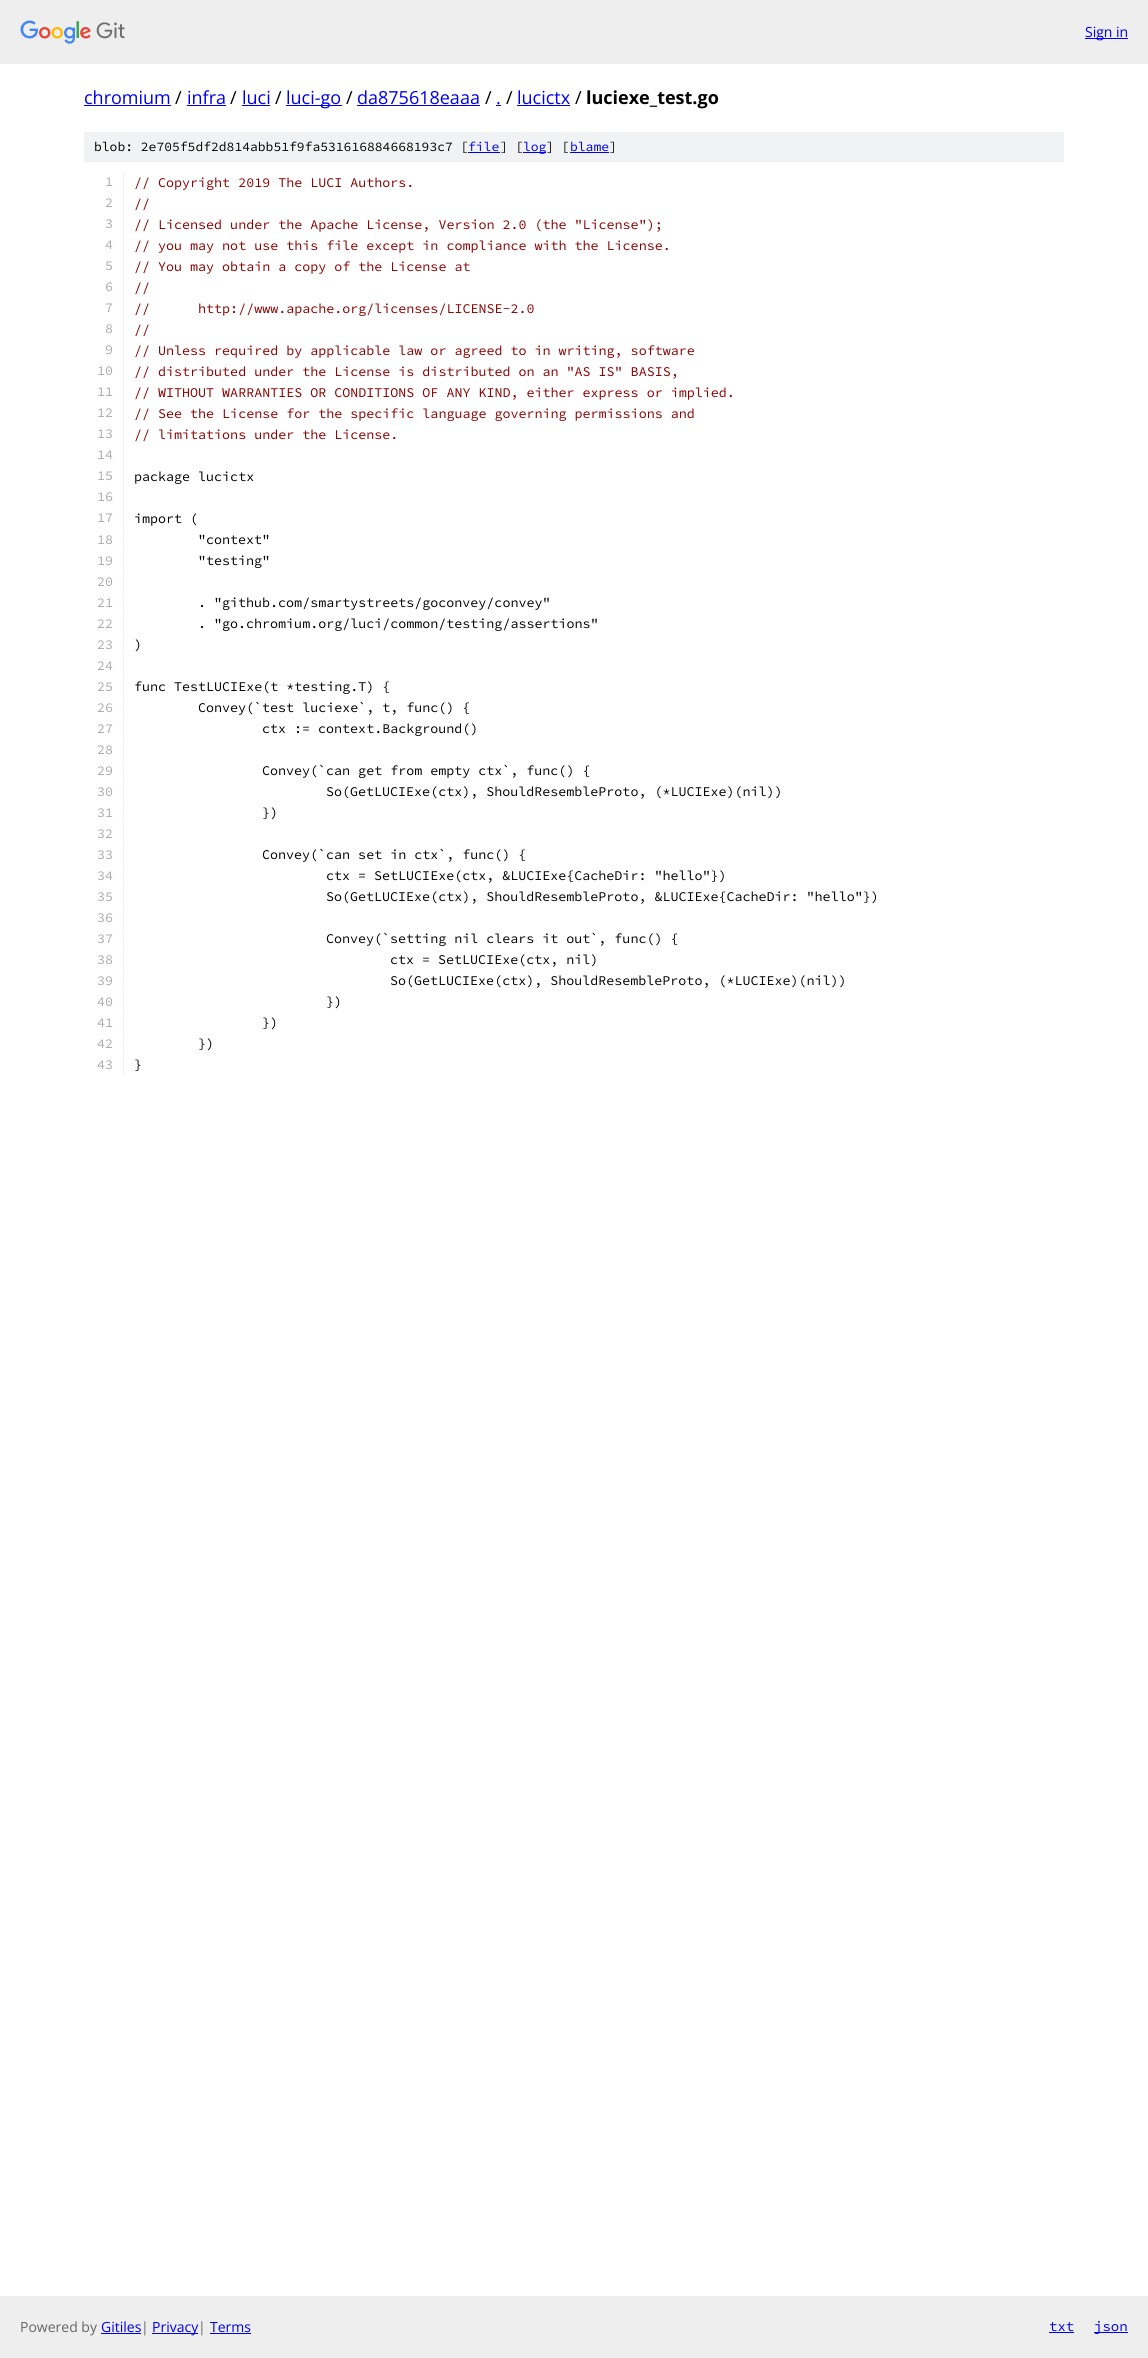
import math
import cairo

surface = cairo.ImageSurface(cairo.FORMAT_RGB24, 1148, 2358)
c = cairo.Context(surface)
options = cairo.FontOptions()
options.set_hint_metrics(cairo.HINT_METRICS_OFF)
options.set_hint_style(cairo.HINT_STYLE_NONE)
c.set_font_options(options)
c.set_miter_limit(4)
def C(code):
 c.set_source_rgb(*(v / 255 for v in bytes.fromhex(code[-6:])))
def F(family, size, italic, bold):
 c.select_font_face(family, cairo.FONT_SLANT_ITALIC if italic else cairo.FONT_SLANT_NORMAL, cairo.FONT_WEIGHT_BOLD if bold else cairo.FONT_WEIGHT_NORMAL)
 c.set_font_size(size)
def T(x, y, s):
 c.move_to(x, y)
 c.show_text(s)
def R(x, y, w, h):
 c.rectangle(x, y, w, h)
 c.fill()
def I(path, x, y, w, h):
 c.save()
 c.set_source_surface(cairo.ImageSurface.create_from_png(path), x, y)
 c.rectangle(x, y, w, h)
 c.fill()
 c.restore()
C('ffffff')
c.paint()
C('eeeeee')
R(0,0,1148,64)
I('1.png',20,20,105,24)
C('0000ee')
R(1085,38,43,1)
F('Open Sans',14,0,0)
T(1085,37,'Sign in')
F('Open Sans',18,0,0)
T(84,104,'chromium')
R(84,105,87,1)
C('000000')
T(175,104,'/')
C('0000ee')
T(187,104,'infra')
R(187,105,39,1)
C('000000')
T(230,104,'/')
C('0000ee')
T(242,104,'luci')
R(242,105,28,1)
C('000000')
T(275,104,'/')
C('0000ee')
R(286,105,56,1)
T(286,104,'luci-go')
C('000000')
T(346,104,'/')
C('0000ee')
T(357,104,'da875618eaaa')
R(357,105,123,1)
C('000000')
T(485,104,'/')
C('0000ee')
T(496,104,'.')
R(496,105,5,1)
C('000000')
T(506,104,'/')
C('0000ee')
T(517,104,'lucictx')
R(517,105,53,1)
C('000000')
T(575,104,'/')
F('Open Sans',18,0,1)
T(586,104,'luciexe_test.go')
C('f1f2f3')
R(84,132,980,30)
F('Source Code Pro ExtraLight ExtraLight',13,0,0)
C('000000')
T(94,151,'blob: 2e705f5df2d814abb51f9fa531616884668193c7 [')
C('0000ee')
T(468,151,'file')
R(468,152,32,1)
C('000000')
T(500,151,'] [')
C('0000ee')
R(523,152,23,1)
T(523,151,'log')
C('000000')
T(546,151,'] [')
C('0000ee')
T(570,151,'blame')
R(570,152,39,1)
C('000000')
T(609,151,']')
C('f1f2f3')
R(123,172,1,357)
F('Source Code Pro ExtraLight ExtraLight',13.35,0,0)
C('aaaaaa')
T(105,186,'1')
C('880000')
T(134,187,'// Copyright 2019 The LUCI Authors.')
C('aaaaaa')
T(105,207,'2')
C('880000')
T(134,208,'//')
C('aaaaaa')
T(105,228,'3')
C('880000')
T(134,229,'// Licensed under the Apache License, Version 2.0 (the "License");')
C('aaaaaa')
T(105,249,'4')
C('880000')
T(134,250,'// you may not use this file except in compliance with the License.')
C('aaaaaa')
T(105,270,'5')
C('880000')
T(134,271,'// You may obtain a copy of the License at')
C('aaaaaa')
T(105,291,'6')
C('880000')
T(134,292,'//')
C('aaaaaa')
T(105,312,'7')
C('880000')
T(134,313,'//      http://www.apache.org/licenses/LICENSE-2.0')
C('aaaaaa')
T(105,333,'8')
C('880000')
T(134,334,'//')
C('aaaaaa')
T(105,354,'9')
C('880000')
T(134,355,'// Unless required by applicable law or agreed to in writing, software')
C('aaaaaa')
T(97,375,'10')
C('880000')
T(134,376,'// distributed under the License is distributed on an "AS IS" BASIS,')
C('aaaaaa')
T(97,396,'11')
C('880000')
T(134,397,'// WITHOUT WARRANTIES OR CONDITIONS OF ANY KIND, either express or implied.')
C('aaaaaa')
T(97,417,'12')
C('880000')
T(134,418,'// See the License for the specific language governing permissions and')
C('aaaaaa')
T(97,438,'13')
C('880000')
T(134,439,'// limitations under the License.')
C('aaaaaa')
T(97,459,'14')
T(97,480,'15')
C('000000')
T(134,481,'package lucictx')
C('aaaaaa')
T(97,501,'16')
T(97,522,'17')
C('000000')
T(134,523,'import (')
C('f1f2f3')
R(123,530,1,20)
C('aaaaaa')
T(97,544,'18')
C('000000')
T(198,544,'"context"')
C('f1f2f3')
R(123,551,1,20)
C('aaaaaa')
T(97,565,'19')
C('000000')
T(198,565,'"testing"')
C('f1f2f3')
R(123,572,1,20)
C('aaaaaa')
T(97,586,'20')
C('f1f2f3')
R(123,593,1,20)
C('aaaaaa')
T(97,607,'21')
C('000000')
T(198,607,'. "github.com/smartystreets/goconvey/convey"')
C('f1f2f3')
R(123,614,1,20)
C('aaaaaa')
T(97,628,'22')
C('000000')
T(198,628,'. "go.chromium.org/luci/common/testing/assertions"')
C('f1f2f3')
R(123,635,1,20)
C('aaaaaa')
T(97,649,'23')
C('000000')
T(134,649,')')
C('f1f2f3')
R(123,656,1,20)
C('aaaaaa')
T(97,670,'24')
C('f1f2f3')
R(123,677,1,20)
C('aaaaaa')
T(97,691,'25')
C('000000')
T(134,691,'func TestLUCIExe(t *testing.T) {')
C('f1f2f3')
R(123,698,1,20)
C('aaaaaa')
T(97,712,'26')
C('000000')
T(198,712,'Convey(`test luciexe`, t, func() {')
C('f1f2f3')
R(123,719,1,20)
C('aaaaaa')
T(97,733,'27')
C('000000')
T(262,733,'ctx := context.Background()')
C('f1f2f3')
R(123,740,1,20)
C('aaaaaa')
T(97,754,'28')
C('f1f2f3')
R(123,761,1,20)
C('aaaaaa')
T(97,775,'29')
C('000000')
T(262,775,'Convey(`can get from empty ctx`, func() {')
C('f1f2f3')
R(123,782,1,20)
C('aaaaaa')
T(97,796,'30')
C('000000')
T(326,796,'So(GetLUCIExe(ctx), ShouldResembleProto, (*LUCIExe)(nil))')
C('f1f2f3')
R(123,803,1,20)
C('aaaaaa')
T(97,817,'31')
C('000000')
T(262,817,'})')
C('f1f2f3')
R(123,824,1,20)
C('aaaaaa')
T(97,838,'32')
C('f1f2f3')
R(123,845,1,20)
C('aaaaaa')
T(97,859,'33')
C('000000')
T(262,859,'Convey(`can set in ctx`, func() {')
C('f1f2f3')
R(123,866,1,20)
C('aaaaaa')
T(97,880,'34')
C('000000')
T(326,880,'ctx = SetLUCIExe(ctx, &LUCIExe{CacheDir: "hello"})')
C('f1f2f3')
R(123,887,1,20)
C('aaaaaa')
T(97,901,'35')
C('000000')
T(326,901,'So(GetLUCIExe(ctx), ShouldResembleProto, &LUCIExe{CacheDir: "hello"})')
C('f1f2f3')
R(123,908,1,20)
C('aaaaaa')
T(97,922,'36')
C('f1f2f3')
R(123,929,1,20)
C('aaaaaa')
T(97,943,'37')
C('000000')
T(326,943,'Convey(`setting nil clears it out`, func() {')
C('f1f2f3')
R(123,950,1,20)
C('aaaaaa')
T(97,964,'38')
C('000000')
T(390,964,'ctx = SetLUCIExe(ctx, nil)')
C('f1f2f3')
R(123,971,1,20)
C('aaaaaa')
T(97,985,'39')
C('000000')
T(390,985,'So(GetLUCIExe(ctx), ShouldResembleProto, (*LUCIExe)(nil))')
C('f1f2f3')
R(123,992,1,20)
C('aaaaaa')
T(97,1006,'40')
C('000000')
T(326,1006,'})')
C('f1f2f3')
R(123,1013,1,20)
C('aaaaaa')
T(97,1027,'41')
C('000000')
T(262,1027,'})')
C('f1f2f3')
R(123,1034,1,20)
C('aaaaaa')
T(97,1048,'42')
C('000000')
T(198,1048,'})')
C('f1f2f3')
R(123,1055,1,20)
C('aaaaaa')
T(97,1069,'43')
C('000000')
T(134,1069,'}')
C('eeeeee')
R(0,2296,1148,62)
F('Open Sans',14,0,0)
C('666666')
T(20,2332,'Powered by')
C('0000ee')
T(101,2332,'Gitiles')
R(101,2333,40,1)
C('666666')
T(141,2332,'|')
C('0000ee')
R(152,2333,46,1)
T(152,2332,'Privacy')
C('666666')
T(198,2332,'|')
C('0000ee')
T(210,2332,'Terms')
R(210,2333,41,1)
F('Source Code Pro ExtraLight ExtraLight',14,0,0)
T(1049,2331,'txt')
R(1049,2332,25,1)
R(1094,2332,34,1)
T(1094,2331,'json')
surface.write_to_png('o.png')
